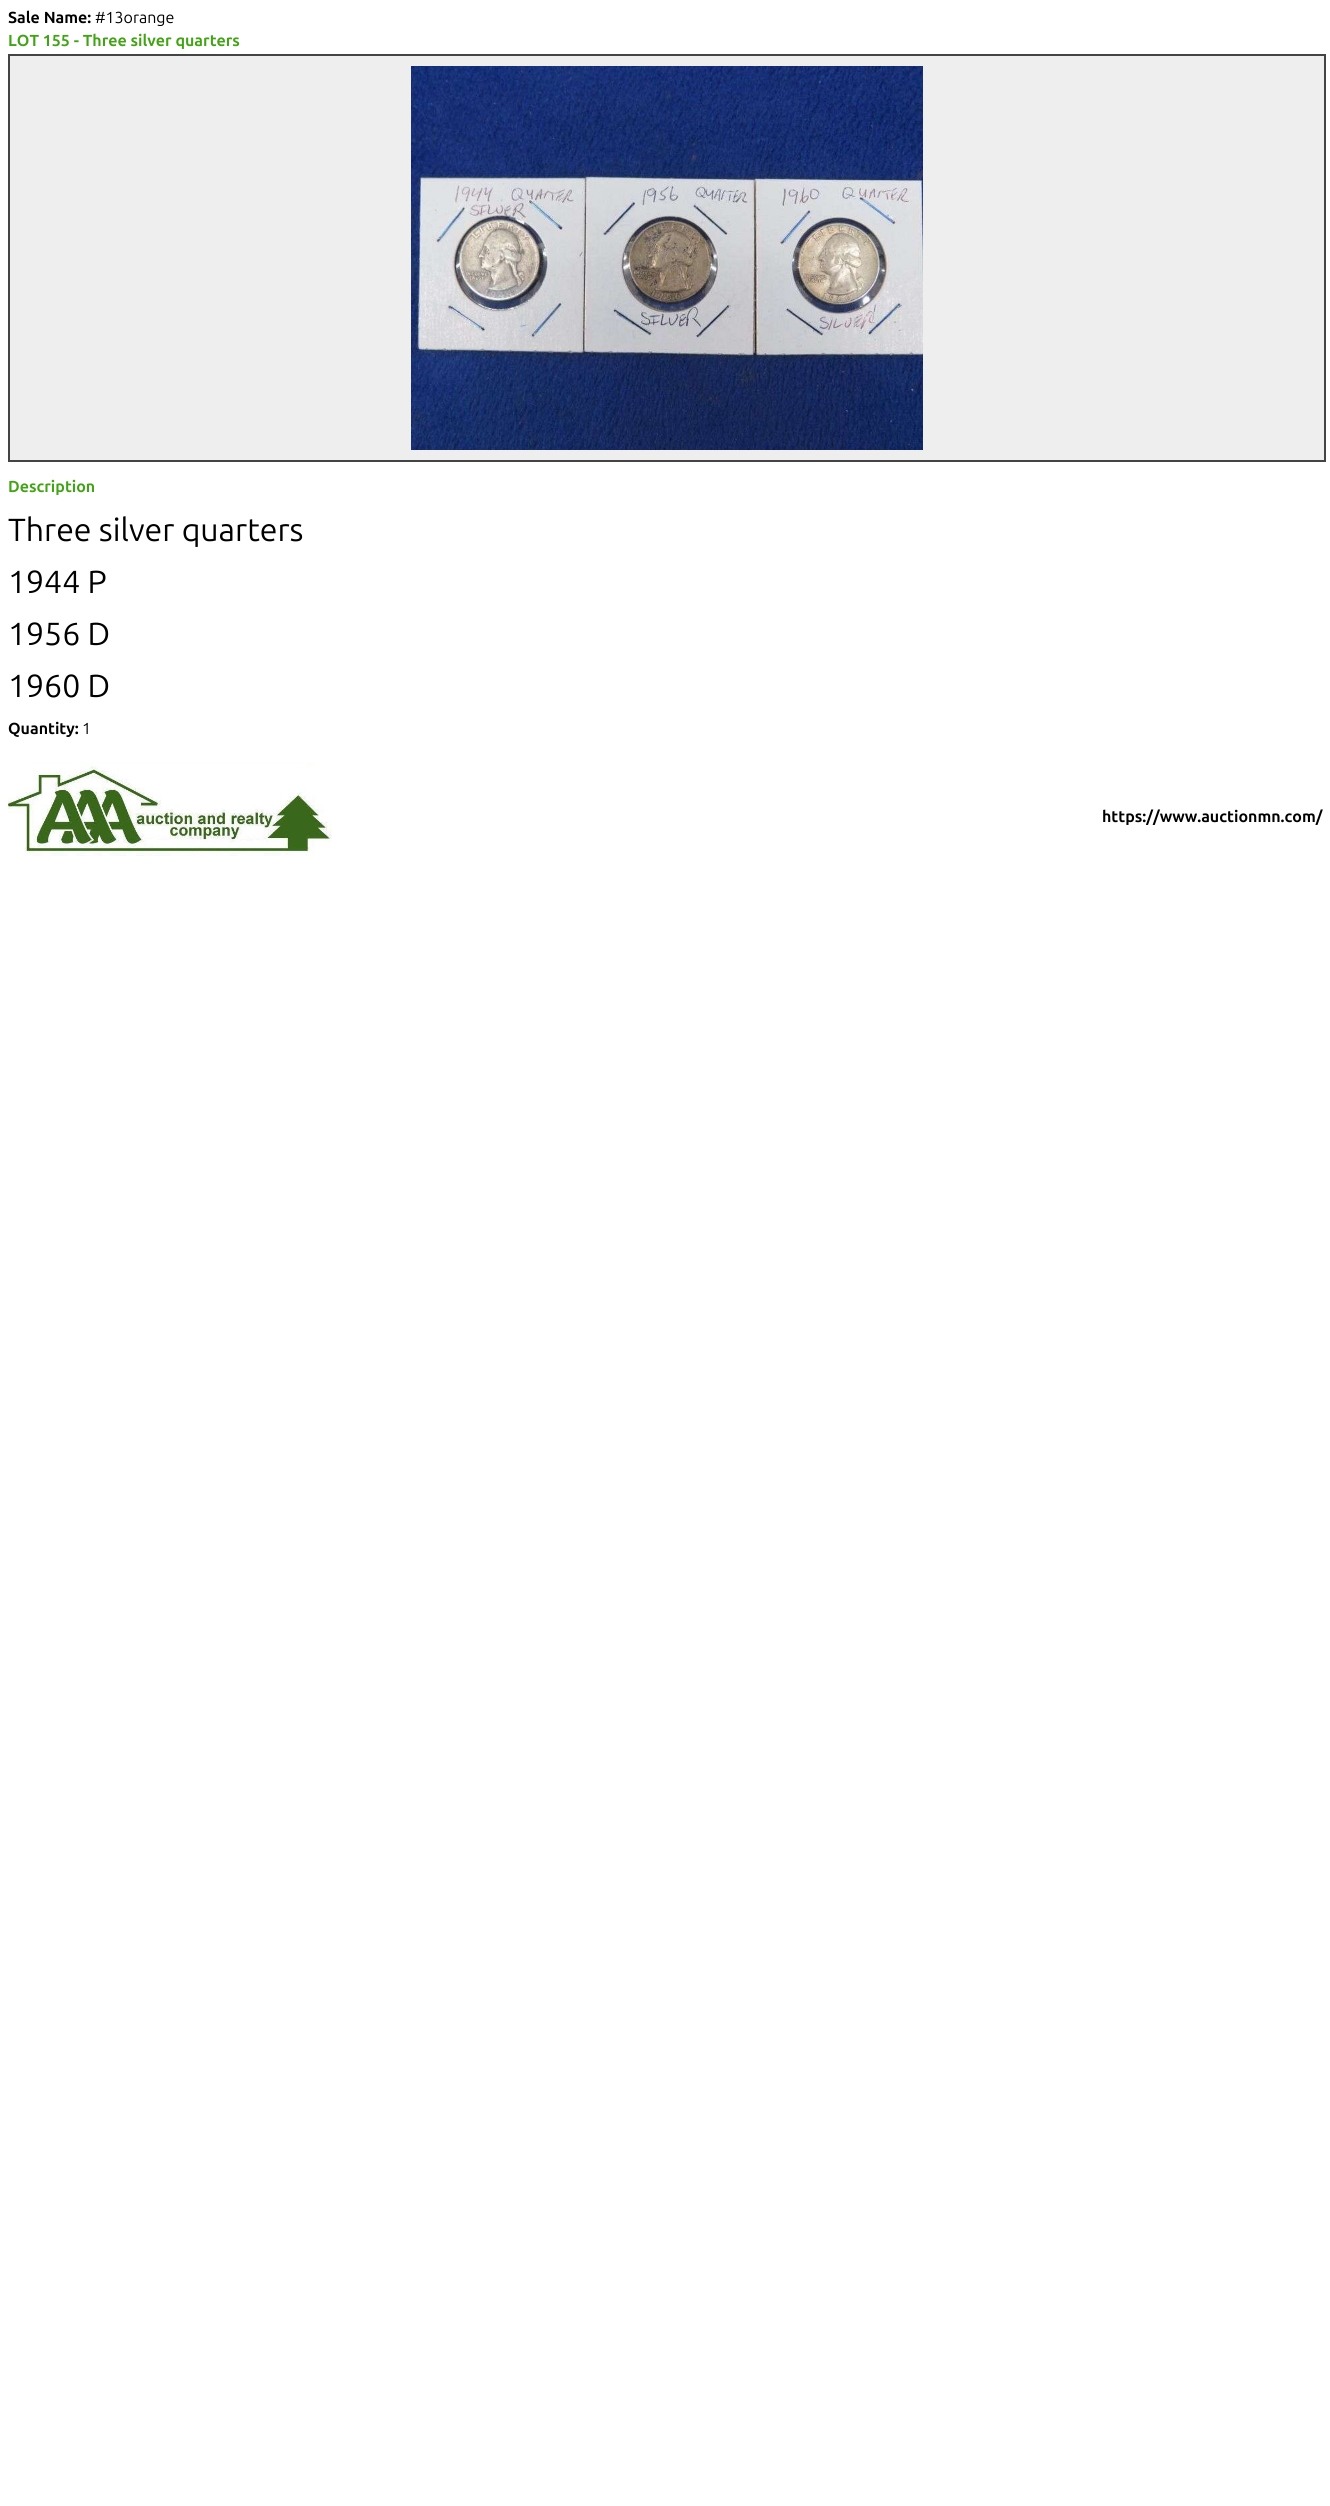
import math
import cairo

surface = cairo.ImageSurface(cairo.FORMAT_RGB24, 1330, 2506)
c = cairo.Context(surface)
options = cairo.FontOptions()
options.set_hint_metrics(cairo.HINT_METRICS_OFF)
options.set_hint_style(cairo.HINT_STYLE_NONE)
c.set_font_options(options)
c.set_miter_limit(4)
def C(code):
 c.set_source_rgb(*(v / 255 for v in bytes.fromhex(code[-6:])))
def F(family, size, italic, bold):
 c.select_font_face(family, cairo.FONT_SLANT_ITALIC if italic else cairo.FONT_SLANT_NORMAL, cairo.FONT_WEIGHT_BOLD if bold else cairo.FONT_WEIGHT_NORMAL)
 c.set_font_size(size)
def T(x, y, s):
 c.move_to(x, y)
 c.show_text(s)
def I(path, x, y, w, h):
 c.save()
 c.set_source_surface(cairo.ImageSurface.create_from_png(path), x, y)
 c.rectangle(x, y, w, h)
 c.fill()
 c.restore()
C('ffffff')
c.paint()
F('Ubuntu',16,0,1)
C('000000')
T(8,23,'Sale Name:')
F('Ubuntu',16,0,0)
T(95,23,'#13orange')
F('Ubuntu',16,0,1)
C('42a316')
T(8,46,'LOT 155 - Three silver quarters')
C('eeeeee')
c.rectangle(9,55,1316,406)
c.fill_preserve()
C('444444')
c.stroke()
I('1.png',411,66,512,384)
C('42a316')
T(8,492,'Description')
F('Ubuntu',32,0,0)
C('000000')
T(8,541,'Three silver quarters')
T(8,593,'1944 P')
T(8,645,'1956 D')
T(8,697,'1960 D')
F('Ubuntu',16,0,1)
T(8,734,'Quantity:')
F('Ubuntu',16,0,0)
T(82,734,'1')
I('2.png',8,762,324,94)
F('Ubuntu',16,0,1)
T(1102,822,'https://www.auctionmn.com/')
surface.write_to_png('o.png')
